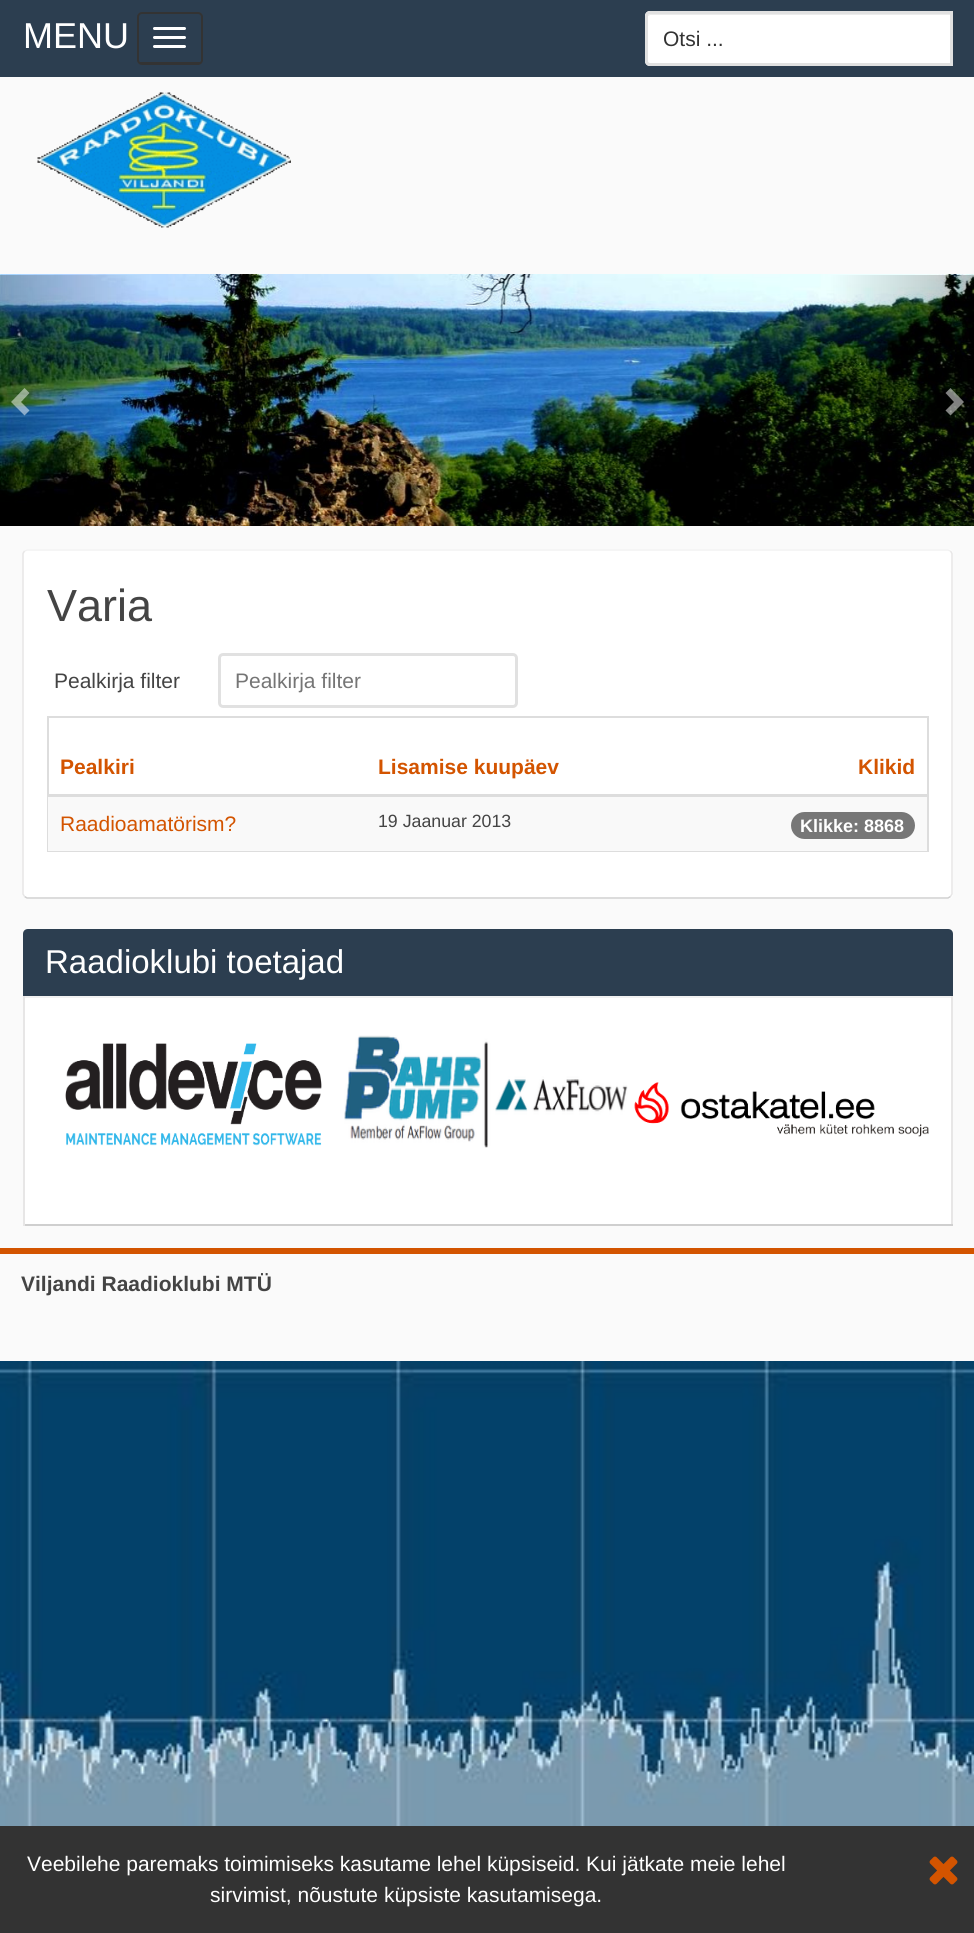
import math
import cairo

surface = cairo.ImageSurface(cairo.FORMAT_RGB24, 974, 1933)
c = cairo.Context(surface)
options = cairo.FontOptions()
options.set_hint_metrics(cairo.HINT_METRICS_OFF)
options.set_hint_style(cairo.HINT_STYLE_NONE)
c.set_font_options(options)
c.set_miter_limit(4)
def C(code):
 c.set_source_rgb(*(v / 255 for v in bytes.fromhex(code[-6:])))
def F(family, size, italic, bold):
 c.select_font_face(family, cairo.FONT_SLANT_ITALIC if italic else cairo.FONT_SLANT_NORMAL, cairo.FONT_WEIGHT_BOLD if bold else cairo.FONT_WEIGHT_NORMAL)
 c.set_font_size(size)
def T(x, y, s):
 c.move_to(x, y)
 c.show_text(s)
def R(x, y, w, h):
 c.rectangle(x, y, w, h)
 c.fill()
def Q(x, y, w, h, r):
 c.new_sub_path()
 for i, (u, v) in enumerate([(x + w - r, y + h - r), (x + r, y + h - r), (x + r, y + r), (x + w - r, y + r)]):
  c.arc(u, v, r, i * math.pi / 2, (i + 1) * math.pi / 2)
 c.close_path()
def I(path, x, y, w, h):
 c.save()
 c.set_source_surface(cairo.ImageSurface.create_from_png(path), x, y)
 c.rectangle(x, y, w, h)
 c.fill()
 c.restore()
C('ffffff')
c.paint()
I('1.png',0,1361,974,465)
C('fafafa')
R(0,77,974,1284)
C('2c3e50')
R(0,0,974,77)
F('Liberation Sans',36,0,0)
C('ffffff')
T(23,48,'MENU')
Q(138,13,64,51,4)
C('333333')
c.stroke()
R(140,62,61,1)
C('ffffff')
Q(153,27,33,3,1.5)
c.fill()
Q(153,36,33,3,1.5)
c.fill()
Q(153,45,33,3,1.5)
c.fill()
c.new_path()
c.move_to(650,11)
c.line_to(953,11)
c.line_to(953,66)
c.line_to(650,66)
c.curve_to(647,66,645,64,645,61)
c.line_to(645,16)
c.curve_to(645,13,647,11,650,11)
c.close_path()
c.fill()
C('ececec')
c.new_path()
c.move_to(650,15)
c.line_to(950,15)
c.line_to(950,14)
c.line_to(650,14)
c.line_to(648,15)
c.line_to(648,16)
c.close_path()
c.fill()
c.new_path()
c.move_to(650,12.5)
c.line_to(951.5,12.5)
c.line_to(951.5,64.5)
c.line_to(650,64.5)
c.curve_to(648,64.5,646.5,63,646.5,61)
c.line_to(646.5,16)
c.curve_to(646.5,14,648,12.5,650,12.5)
c.close_path()
C('e1e1e1')
c.set_line_width(3)
c.stroke()
F('Liberation Sans',21,0,0)
C('333333')
T(663,46,'Otsi ...')
I('2.png',37,92,254,136)
I('3.png',0,274,974,252)
c.set_source_rgba(1,1,1,0.5)
c.new_path()
c.move_to(29.5,393)
c.line_to(21,402)
c.line_to(29.5,410.5)
c.line_to(24.5,415.5)
c.line_to(11,402)
c.line_to(24.5,388)
c.close_path()
c.fill()
c.new_path()
c.move_to(964,402)
c.line_to(950.5,415.5)
c.line_to(945.5,410.5)
c.line_to(954,402)
c.line_to(945.5,393)
c.line_to(950.5,388)
c.close_path()
c.fill()
C('ffffff')
Q(23,549,930,350,5)
c.fill()
c.new_path()
c.move_to(24.5,551)
c.line_to(27,550)
c.line_to(948,550)
c.line_to(950.5,551)
C('f1f1f1')
c.set_line_width(1.5)
c.stroke()
c.new_path()
c.move_to(950.5,551)
c.line_to(952,553.5)
c.line_to(952,894)
c.line_to(950.5,896.5)
C('e7e6e6')
c.stroke()
c.new_path()
c.move_to(950.5,896.5)
c.line_to(948,898)
c.line_to(27,898)
c.line_to(24.5,896.5)
C('cfcfcf')
c.stroke()
c.new_path()
c.move_to(24.5,896.5)
c.line_to(23,894)
c.line_to(23,553.5)
c.line_to(24.5,551)
C('e7e6e6')
c.stroke()
F('Liberation Sans',45,0,0)
C('444444')
T(47,621,'Varia')
F('Liberation Sans',21,0,0)
T(54,688,'Pealkirja filter')
Q(219.5,654.5,297,52,3.5)
C('e1e1e1')
c.set_line_width(3)
c.stroke()
C('757575')
T(235,688,'Pealkirja filter')
c.rectangle(48,717,880,134)
C('dddddd')
c.set_line_width(2)
c.stroke()
F('Liberation Sans',21,0,1)
C('d35400')
T(60,774,'Pealkiri')
T(378,774,'Lisamise kuupäev')
C('dddddd')
R(48,794,879,3)
C('d35400')
T(858,774,'Klikid')
C('f9f9f9')
R(48,797,879,54)
F('Liberation Sans',21,0,0)
C('d35400')
T(60,831,'Raadioamatörism?')
F('Liberation Sans',17.75,0,0)
C('444444')
T(378,827,'19 Jaanuar 2013')
C('777777')
Q(791,812,124,27,13.5)
c.fill()
F('Liberation Sans',18,0,1)
C('ffffff')
T(800,832,'Klikke: 8868')
C('2c3e50')
c.new_path()
c.move_to(28,929)
c.line_to(948,929)
c.curve_to(951,929,953,931,953,934)
c.line_to(953,996)
c.line_to(23,996)
c.line_to(23,934)
c.curve_to(23,931,25,929,28,929)
c.close_path()
c.fill()
F('Liberation Sans',33,0,0)
C('ffffff')
T(45,973,'Raadioklubi toetajad')
R(25,998,926,226)
C('f1f1f1')
R(23,996,930,2)
C('e7e6e6')
R(951,996,2,230)
C('cfcfcf')
R(23,1224,930,2)
C('e7e6e6')
R(23,996,2,230)
I('4.png',65,1043,257,103)
I('5.png',344,1035,284,113)
I('6.png',634,1082,295,55)
C('d35400')
R(0,1248,974,6)
F('Liberation Sans',21,0,1)
C('444444')
T(21,1291,'Viljandi Raadioklubi MTÜ')
C('333333')
R(0,1826,974,107)
F('Liberation Sans',21,0,0)
C('ffffff')
T(27,1871,'Veebilehe paremaks toimimiseks kasutame lehel küpsiseid. Kui jätkate meie lehel')
T(210,1902,'sirvimist, nõustute küpsiste kasutamisega.')
I('7.png',929,1856,29,29)
surface.write_to_png('o.png')
